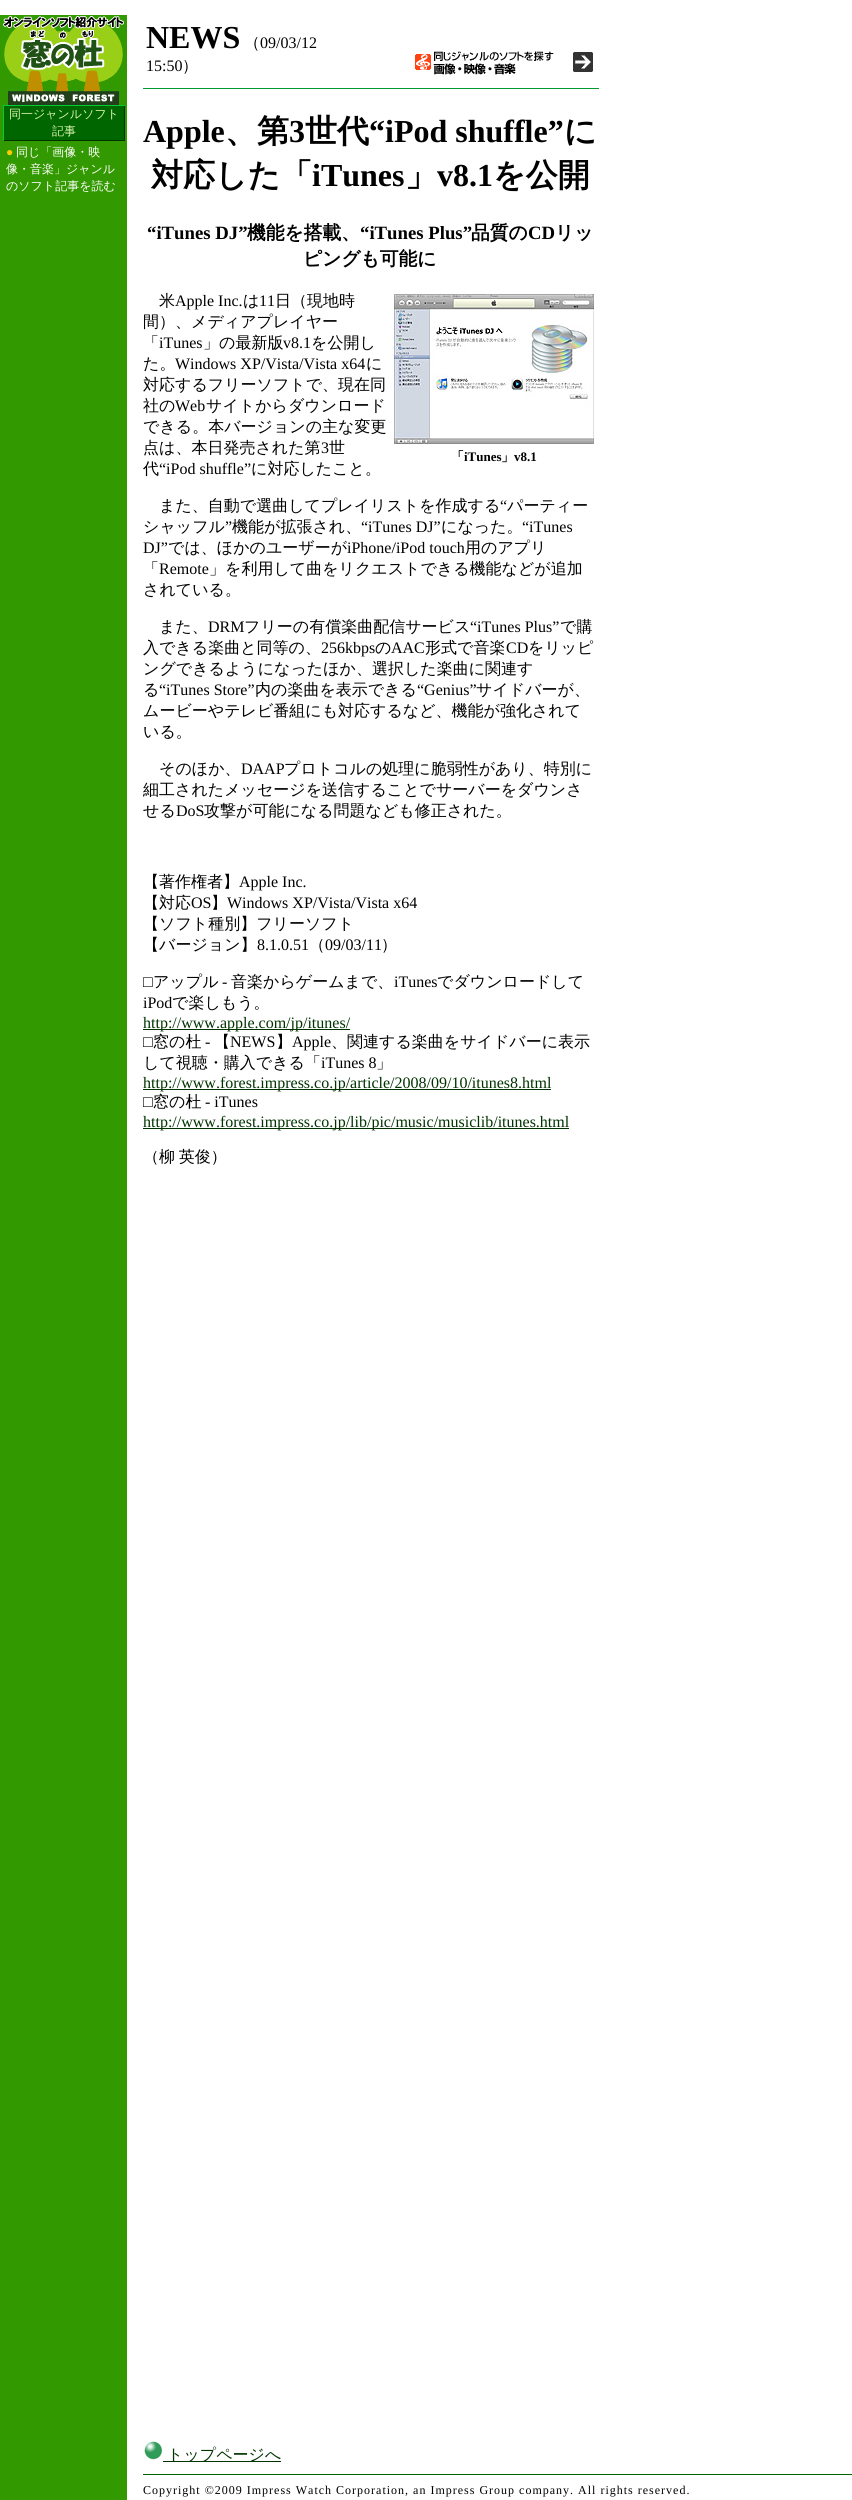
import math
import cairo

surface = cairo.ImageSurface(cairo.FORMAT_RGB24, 852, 2500)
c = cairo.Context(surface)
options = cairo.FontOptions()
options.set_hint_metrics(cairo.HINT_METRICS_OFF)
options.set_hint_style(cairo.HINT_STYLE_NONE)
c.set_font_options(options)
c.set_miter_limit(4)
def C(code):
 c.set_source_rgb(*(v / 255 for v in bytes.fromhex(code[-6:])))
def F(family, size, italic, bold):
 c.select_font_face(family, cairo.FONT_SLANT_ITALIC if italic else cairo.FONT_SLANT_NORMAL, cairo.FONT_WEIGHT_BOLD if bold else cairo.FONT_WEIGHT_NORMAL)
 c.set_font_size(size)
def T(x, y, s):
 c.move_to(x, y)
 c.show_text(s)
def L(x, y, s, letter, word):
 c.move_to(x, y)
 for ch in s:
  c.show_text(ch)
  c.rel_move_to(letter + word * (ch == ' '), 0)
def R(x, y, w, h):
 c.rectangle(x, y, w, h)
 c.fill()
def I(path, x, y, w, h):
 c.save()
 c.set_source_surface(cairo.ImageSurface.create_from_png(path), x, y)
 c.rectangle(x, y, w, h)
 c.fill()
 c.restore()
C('ffffff')
c.paint()
C('339900')
R(0,15,127,2485)
I('1.png',2,16,123,89)
C('00cc33')
R(3,105,122,1)
R(3,106,1,34)
C('006600')
R(4,106,120,34)
F('WenQuanYi Zen Hei Medium',12,0,0)
C('dcf4b1')
T(9,118,'同一ジャンルソフト')
T(52,135,'記事')
C('003300')
R(124,106,1,34)
R(4,140,121,1)
F('Liberation Serif',12,0,0)
C('ffcc00')
T(6,156,'●')
F('WenQuanYi Zen Hei Medium',12,0,0)
C('ffffff')
T(16,156,'同じ「画像・映')
T(6,173,'像・音楽」ジャンル')
T(6,190,'のソフト記事を読む')
F('Liberation Serif',32,0,1)
C('000000')
T(146,48,'NEWS')
F('WenQuanYi Zen Hei Medium',16,0,0)
T(244,48,'（')
F('Liberation Serif',16,0,0)
T(260,48,'09/03/12')
T(146,71,'15:50')
F('WenQuanYi Zen Hei Medium',16,0,0)
T(182,71,'）')
I('2.png',415,51,178,24)
C('009933')
R(143,88,456,1)
F('Liberation Serif',32,0,1)
C('000000')
T(143,142,'Apple')
F('WenQuanYi Zen Hei',32,0,1)
T(225,142,'、第')
F('Liberation Serif',32,0,1)
T(289,142,'3')
F('WenQuanYi Zen Hei',32,0,1)
T(305,142,'世代')
F('Liberation Serif',32,0,1)
T(369,142,'“iPod shuffle”')
F('WenQuanYi Zen Hei',32,0,1)
T(564,142,'に')
T(151,186,'対応した「')
F('Liberation Serif',32,0,1)
T(312,186,'iTunes')
F('WenQuanYi Zen Hei',32,0,1)
T(405,186,'」')
F('Liberation Serif',32,0,1)
T(437,186,'v8.1')
F('WenQuanYi Zen Hei',32,0,1)
T(493,186,'を公開')
F('Liberation Serif',18.75,0,1)
T(147,239,'“iTunes DJ”')
F('WenQuanYi Zen Hei',18.75,0,1)
T(247,239,'機能を搭載、')
F('Liberation Serif',18.75,0,1)
T(360,239,'“iTunes Plus”')
F('WenQuanYi Zen Hei',18.75,0,1)
T(471,239,'品質の')
F('Liberation Serif',18.75,0,1)
T(528,239,'CD')
F('WenQuanYi Zen Hei',18.75,0,1)
T(555,239,'リッ')
T(303,265,'ピングも可能に')
F('WenQuanYi Zen Hei Medium',16,0,0)
T(159,306,'米')
F('Liberation Serif',16,0,0)
T(175,306,'Apple Inc.')
F('WenQuanYi Zen Hei Medium',16,0,0)
T(243,306,'は')
F('Liberation Serif',16,0,0)
T(259,306,'11')
F('WenQuanYi Zen Hei Medium',16,0,0)
T(275,306,'日（現地時')
T(143,327,'間）、メディアプレイヤー')
T(143,348,'「')
F('Liberation Serif',16,0,0)
T(159,348,'iTunes')
F('WenQuanYi Zen Hei Medium',16,0,0)
T(203,348,'」の最新版')
F('Liberation Serif',16,0,0)
T(283,348,'v8.1')
F('WenQuanYi Zen Hei Medium',16,0,0)
T(311,348,'を公開し')
T(143,369,'た。')
F('Liberation Serif',16,0,0)
T(175,369,'Windows XP/Vista/Vista x64')
F('WenQuanYi Zen Hei Medium',16,0,0)
T(366,369,'に')
T(143,390,'対応するフリーソフトで、現在同')
T(143,411,'社の')
F('Liberation Serif',16,0,0)
T(175,411,'Web')
F('WenQuanYi Zen Hei Medium',16,0,0)
T(206,411,'サイトからダウンロード')
T(143,432,'できる。本バージョンの主な変更')
T(143,453,'点は、本日発売された第')
F('Liberation Serif',16,0,0)
T(321,453,'3')
F('WenQuanYi Zen Hei Medium',16,0,0)
T(329,453,'世')
I('3.png',394,294,200,150)
F('WenQuanYi Zen Hei',13,0,1)
T(451,461,'「')
F('Liberation Serif',13,0,1)
T(464,461,'iTunes')
F('WenQuanYi Zen Hei',13,0,1)
T(501,461,'」')
F('Liberation Serif',13,0,1)
T(514,461,'v8.1')
F('WenQuanYi Zen Hei Medium',16,0,0)
T(143,474,'代')
F('Liberation Serif',16,0,0)
T(159,474,'“iPod shuffle”')
F('WenQuanYi Zen Hei Medium',16,0,0)
T(251,474,'に対応したこと。')
T(159,511,'また、自動で選曲してプレイリストを作成する')
F('Liberation Serif',16,0,0)
T(500,511,'“')
F('WenQuanYi Zen Hei Medium',16,0,0)
T(507,511,'パーティー')
T(143,532,'シャッフル')
F('Liberation Serif',16,0,0)
T(225,532,'”')
F('WenQuanYi Zen Hei Medium',16,0,0)
T(232,532,'機能が拡張され、')
F('Liberation Serif',16,0,0)
T(361,532,'“iTunes DJ”')
F('WenQuanYi Zen Hei Medium',16,0,0)
T(441,532,'になった。')
F('Liberation Serif',16,0,0)
T(522,532,'“iTunes')
T(143,553,'DJ”')
F('WenQuanYi Zen Hei Medium',16,0,0)
T(168,553,'では、ほかのユーザーが')
F('Liberation Serif',16,0,0)
T(347,553,'iPhone/iPod touch')
F('WenQuanYi Zen Hei Medium',16,0,0)
T(465,553,'用のアプリ')
T(143,574,'「')
F('Liberation Serif',16,0,0)
T(159,574,'Remote')
F('WenQuanYi Zen Hei Medium',16,0,0)
T(209,574,'」を利用して曲をリクエストできる機能などが追加')
T(143,595,'されている。')
T(159,632,'また、')
F('Liberation Serif',16,0,0)
T(208,632,'DRM')
F('WenQuanYi Zen Hei Medium',16,0,0)
T(244,632,'フリーの有償楽曲配信サービス')
F('Liberation Serif',16,0,0)
T(470,632,'“iTunes Plus”')
F('WenQuanYi Zen Hei Medium',16,0,0)
T(560,632,'で購')
T(143,653,'入できる楽曲と同等の、')
F('Liberation Serif',16,0,0)
T(321,653,'256kbps')
F('WenQuanYi Zen Hei Medium',16,0,0)
T(375,653,'の')
F('Liberation Serif',16,0,0)
T(391,653,'AAC')
F('WenQuanYi Zen Hei Medium',16,0,0)
T(425,653,'形式で音楽')
F('Liberation Serif',16,0,0)
T(506,653,'CD')
F('WenQuanYi Zen Hei Medium',16,0,0)
T(528,653,'をリッピ')
T(143,674,'ングできるようになったほか、選択した楽曲に関連す')
T(143,695,'る')
F('Liberation Serif',16,0,0)
T(159,695,'“iTunes Store”')
F('WenQuanYi Zen Hei Medium',16,0,0)
T(255,695,'内の楽曲を表示できる')
F('Liberation Serif',16,0,0)
T(417,695,'“Genius”')
F('WenQuanYi Zen Hei Medium',16,0,0)
T(476,695,'サイドバーが、')
T(143,716,'ムービーやテレビ番組にも対応するなど、機能が強化されて')
T(143,737,'いる。')
T(159,774,'そのほか、')
F('Liberation Serif',16,0,0)
T(241,774,'DAAP')
F('WenQuanYi Zen Hei Medium',16,0,0)
T(284,774,'プロトコルの処理に脆弱性があり、特別に')
T(143,795,'細工されたメッセージを送信することでサーバーをダウンさ')
T(143,816,'せる')
F('Liberation Serif',16,0,0)
T(176,816,'DoS')
F('WenQuanYi Zen Hei Medium',16,0,0)
T(204,816,'攻撃が可能になる問題なども修正された。')
T(143,887,'【著作権者】')
F('Liberation Serif',16,0,0)
T(239,887,'Apple Inc.')
F('WenQuanYi Zen Hei Medium',16,0,0)
T(143,908,'【対応')
F('Liberation Serif',16,0,0)
T(191,908,'OS')
F('WenQuanYi Zen Hei Medium',16,0,0)
T(211,908,'】')
F('Liberation Serif',16,0,0)
T(227,908,'Windows XP/Vista/Vista x64')
F('WenQuanYi Zen Hei Medium',16,0,0)
T(143,929,'【ソフト種別】フリーソフト')
T(143,950,'【バージョン】')
F('Liberation Serif',16,0,0)
T(257,950,'8.1.0.51')
F('WenQuanYi Zen Hei Medium',16,0,0)
T(309,950,'（')
F('Liberation Serif',16,0,0)
T(325,950,'09/03/11')
F('WenQuanYi Zen Hei Medium',16,0,0)
T(381,950,'）')
F('Liberation Serif',16,0,0)
T(143,987,'□')
F('WenQuanYi Zen Hei Medium',16,0,0)
T(153,987,'アップル')
F('Liberation Serif',16,0,0)
T(222,987,'-')
F('WenQuanYi Zen Hei Medium',16,0,0)
T(231,987,'音楽からゲームまで、')
F('Liberation Serif',16,0,0)
T(394,987,'iTunes')
F('WenQuanYi Zen Hei Medium',16,0,0)
T(437,987,'でダウンロードして')
F('Liberation Serif',16,0,0)
T(143,1008,'iPod')
F('WenQuanYi Zen Hei Medium',16,0,0)
T(172,1008,'で楽しもう。')
C('003300')
R(143,1029,207,1)
F('Liberation Serif',16,0,0)
T(143,1028,'http://www.apple.com/jp/itunes/')
C('000000')
T(143,1047,'□')
F('WenQuanYi Zen Hei Medium',16,0,0)
T(153,1047,'窓の杜')
F('Liberation Serif',16,0,0)
T(205,1047,'-')
F('WenQuanYi Zen Hei Medium',16,0,0)
T(214,1047,'【')
F('Liberation Serif',16,0,0)
T(230,1047,'NEWS')
F('WenQuanYi Zen Hei Medium',16,0,0)
T(276,1047,'】')
F('Liberation Serif',16,0,0)
T(292,1047,'Apple')
F('WenQuanYi Zen Hei Medium',16,0,0)
T(331,1047,'、関連する楽曲をサイドバーに表示')
T(143,1068,'して視聴・購入できる「')
F('Liberation Serif',16,0,0)
T(321,1068,'iTunes 8')
F('WenQuanYi Zen Hei Medium',16,0,0)
T(376,1068,'」')
C('003300')
R(143,1089,408,1)
F('Liberation Serif',16,0,0)
T(143,1088,'http://www.forest.impress.co.jp/article/2008/09/10/itunes8.html')
C('000000')
T(143,1107,'□')
F('WenQuanYi Zen Hei Medium',16,0,0)
T(153,1107,'窓の杜')
F('Liberation Serif',16,0,0)
T(205,1107,'- iTunes')
C('003300')
R(143,1128,426,1)
T(143,1127,'http://www.forest.impress.co.jp/lib/pic/music/musiclib/itunes.html')
F('WenQuanYi Zen Hei Medium',16,0,0)
C('000000')
L(143,1162,'（柳 英俊）',0,-1)
I('4.png',144,2441,19,19)
C('003300')
R(163,2461,118,1)
T(167,2460,'トップページへ')
C('006600')
R(143,2474,709,1)
F('Liberation Serif',12,0,0)
C('000000')
L(143,2494,'Copyright ©2009 Impress Watch Corporation, an Impress Group company. All rights reserved.',1,0)
surface.write_to_png('o.png')
